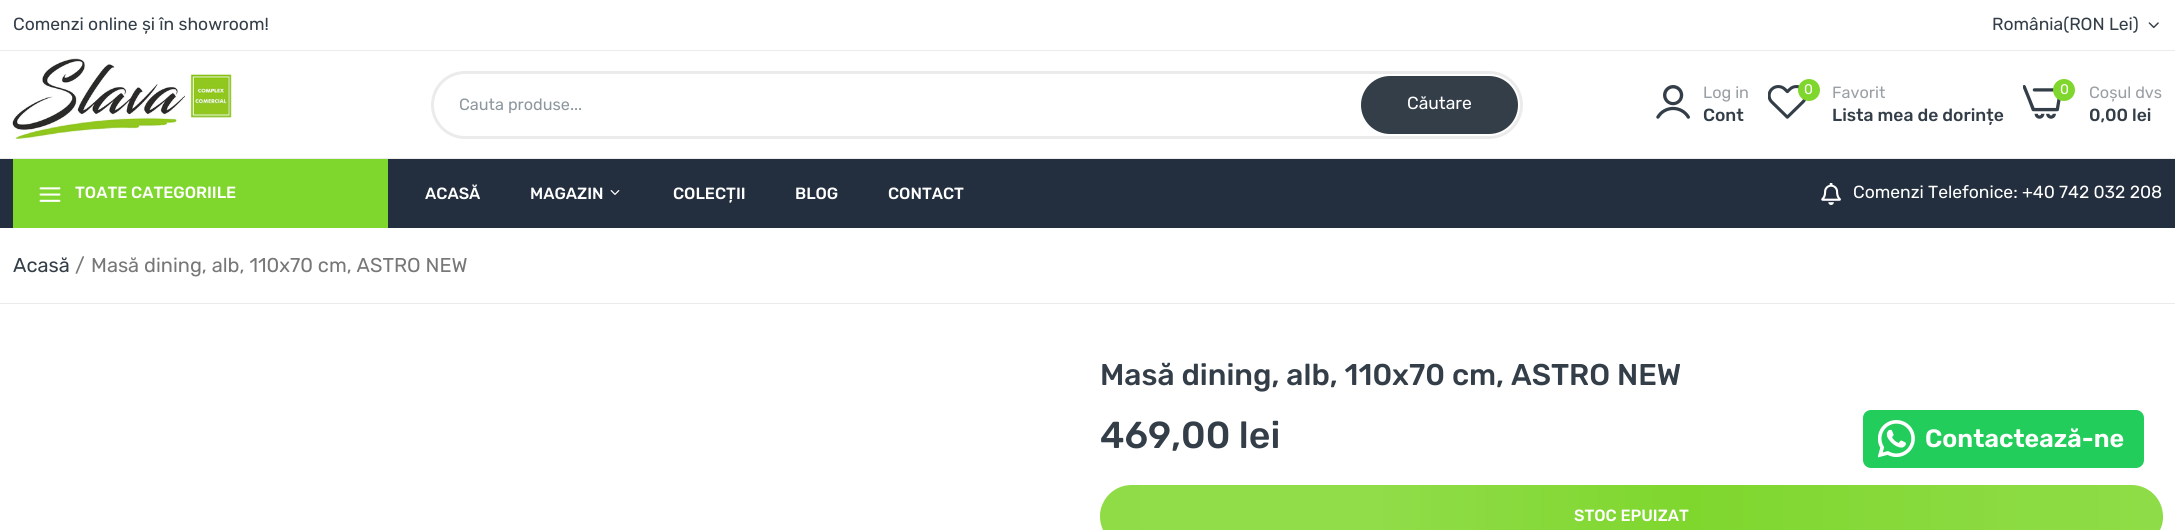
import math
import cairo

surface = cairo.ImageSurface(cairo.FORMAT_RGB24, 2175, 530)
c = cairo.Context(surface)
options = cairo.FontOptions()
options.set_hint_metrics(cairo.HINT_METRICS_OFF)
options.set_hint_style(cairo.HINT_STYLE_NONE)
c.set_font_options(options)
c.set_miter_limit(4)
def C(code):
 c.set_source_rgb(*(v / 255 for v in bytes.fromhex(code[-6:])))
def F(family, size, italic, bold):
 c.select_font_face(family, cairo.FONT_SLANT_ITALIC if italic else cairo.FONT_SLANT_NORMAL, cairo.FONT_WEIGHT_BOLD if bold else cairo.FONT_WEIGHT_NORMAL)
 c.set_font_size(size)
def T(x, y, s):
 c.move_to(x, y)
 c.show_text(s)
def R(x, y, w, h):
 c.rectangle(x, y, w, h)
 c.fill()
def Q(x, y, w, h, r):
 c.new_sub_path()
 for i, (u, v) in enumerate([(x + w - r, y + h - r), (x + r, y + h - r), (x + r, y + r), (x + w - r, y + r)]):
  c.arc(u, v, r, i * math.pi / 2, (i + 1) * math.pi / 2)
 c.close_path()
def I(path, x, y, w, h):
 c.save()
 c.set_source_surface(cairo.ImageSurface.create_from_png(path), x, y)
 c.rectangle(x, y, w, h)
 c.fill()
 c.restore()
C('ffffff')
c.paint()
C('ebebeb')
R(0,50,2175,1)
F('Rubik',17.5,0,0)
C('333e48')
T(13,30,'Comenzi online și în showroom!')
T(1992,30,'România(RON Lei)')
I('1.png',2148,22,11,7)
I('2.png',12,58,220,81)
Q(432.5,72.5,1089,65,32.5)
C('ebebeb')
c.set_line_width(3)
c.stroke()
F('Rubik',16.25,0,0)
C('8d979e')
T(459,110,'Cauta produse...')
C('333e48')
Q(1361,76,157,58,29)
c.fill()
F('Rubik',17.5,0,0)
C('ffffff')
T(1407,109,'Căutare')
I('3.png',1656,85,34,34)
F('Rubik',16.25,0,0)
C('999fa4')
T(1703,98,'Log in')
F('Rubik Medium',17.5,0,0)
C('333e48')
T(1703,121,'Cont')
I('4.png',1768,85,39,34)
C('7fd72e')
c.arc(1809,90,11,0,2 * math.pi)
c.fill()
F('Rubik',14,0,0)
C('ffffff')
T(1804,94,'0')
F('Rubik',16.25,0,0)
C('999fa4')
T(1832,98,'Favorit')
F('Rubik Medium',17.5,0,0)
C('333e48')
T(1832,121,'Lista mea de dorințe')
I('5.png',2023,85,38,34)
C('7fd72e')
c.arc(2064,90,11,0,2 * math.pi)
c.fill()
F('Rubik',14,0,0)
C('ffffff')
T(2060,94,'0')
F('Rubik',16.25,0,0)
C('999fa4')
T(2089,98,'Coșul dvs')
F('Rubik Medium',17.5,0,0)
C('333e48')
T(2089,121,'0,00 lei')
C('232f3e')
R(0,159,2175,69)
C('ebebeb')
R(0,158,2175,1)
C('7fd72e')
R(13,159,375,69)
I('6.png',39,187,22,15)
F('Rubik Medium',16.25,0,0)
C('ffffff')
T(75,198,'TOATE CATEGORIILE')
T(425,199,'ACASĂ')
T(530,199,'MAGAZIN')
I('7.png',610,190,10,5)
T(673,199,'COLECȚII')
T(795,199,'BLOG')
T(888,199,'CONTACT')
I('8.png',1821,183,20,22)
F('Rubik',17.5,0,0)
T(1853,198,'Comenzi Telefonice: +40 742 032 208')
C('ebebeb')
R(0,303,2175,1)
F('Rubik',20,0,0)
C('333e48')
T(13,272,'Acasă')
C('777777')
T(75,272,'/')
T(91,272,'Masă dining, alb, 110x70 cm, ASTRO NEW')
F('Rubik Medium',30,0,0)
C('333e48')
T(1100,385,'Masă dining, alb, 110x70 cm, ASTRO NEW')
F('Rubik Medium',37.5,0,0)
T(1100,448,'469,00 lei')
C('7fd72e')
Q(1100,485,1063,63,31.5)
c.fill()
gradient = cairo.LinearGradient(623,516,1685,516)
gradient.add_color_stop_rgba(0,1,1,1,0)
gradient.add_color_stop_rgba(.01,1,1,1,0)
gradient.add_color_stop_rgba(.3,1,1,1,.09)
gradient.add_color_stop_rgba(.5,1,1,1,.13)
gradient.add_color_stop_rgba(.71,1,1,1,.13)
gradient.add_color_stop_rgba(1,1,1,1,0)
c.set_source(gradient)
c.new_path()
c.move_to(1106,485)
c.line_to(1094,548)
c.line_to(1679,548)
c.line_to(1691,485)
c.close_path()
c.fill()
gradient = cairo.LinearGradient(1685,516,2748,516)
gradient.add_color_stop_rgba(0,1,1,1,0)
gradient.add_color_stop_rgba(.01,1,1,1,0)
gradient.add_color_stop_rgba(.3,1,1,1,.09)
gradient.add_color_stop_rgba(.5,1,1,1,.13)
gradient.add_color_stop_rgba(.71,1,1,1,.13)
gradient.add_color_stop_rgba(1,1,1,1,0)
c.set_source(gradient)
c.new_path()
c.move_to(1691,485)
c.line_to(1679,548)
c.line_to(2157,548)
c.line_to(2168,485)
c.close_path()
c.fill()
F('Rubik Medium',16.25,0,0)
C('ffffff')
T(1574,521,'STOC EPUIZAT')
C('22cd5b')
Q(1863,410,281,58,8)
c.fill()
I('9.png',1878,420,37,38)
F('Rubik SemiBold',25,0,0)
C('ffffff')
T(1925,447,'Contactează-ne')
surface.write_to_png('o.png')
